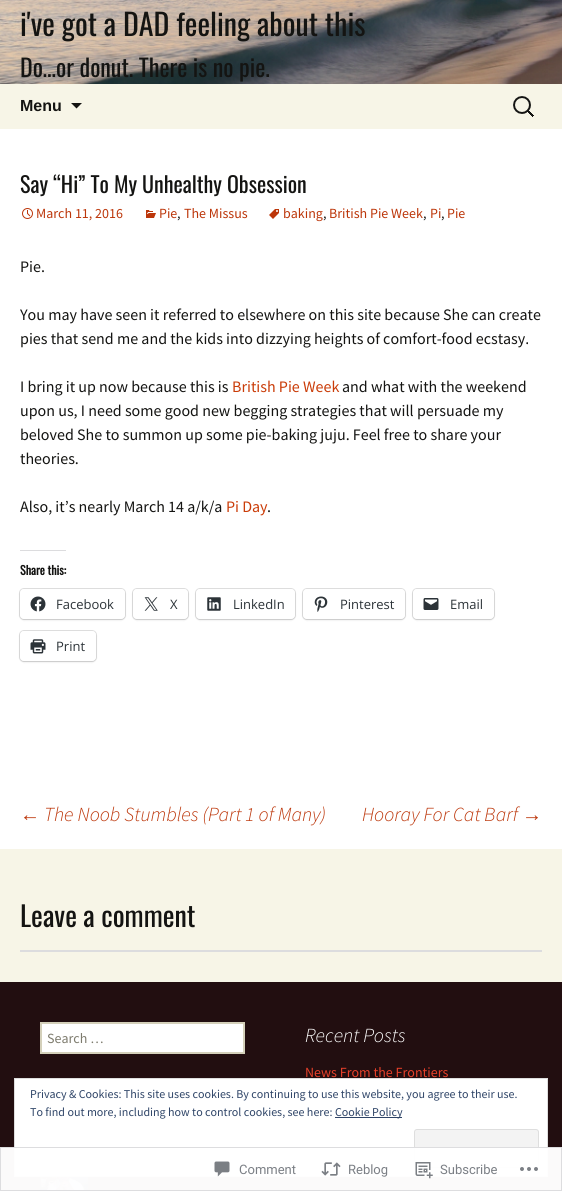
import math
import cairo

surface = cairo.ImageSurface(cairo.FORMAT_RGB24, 562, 1191)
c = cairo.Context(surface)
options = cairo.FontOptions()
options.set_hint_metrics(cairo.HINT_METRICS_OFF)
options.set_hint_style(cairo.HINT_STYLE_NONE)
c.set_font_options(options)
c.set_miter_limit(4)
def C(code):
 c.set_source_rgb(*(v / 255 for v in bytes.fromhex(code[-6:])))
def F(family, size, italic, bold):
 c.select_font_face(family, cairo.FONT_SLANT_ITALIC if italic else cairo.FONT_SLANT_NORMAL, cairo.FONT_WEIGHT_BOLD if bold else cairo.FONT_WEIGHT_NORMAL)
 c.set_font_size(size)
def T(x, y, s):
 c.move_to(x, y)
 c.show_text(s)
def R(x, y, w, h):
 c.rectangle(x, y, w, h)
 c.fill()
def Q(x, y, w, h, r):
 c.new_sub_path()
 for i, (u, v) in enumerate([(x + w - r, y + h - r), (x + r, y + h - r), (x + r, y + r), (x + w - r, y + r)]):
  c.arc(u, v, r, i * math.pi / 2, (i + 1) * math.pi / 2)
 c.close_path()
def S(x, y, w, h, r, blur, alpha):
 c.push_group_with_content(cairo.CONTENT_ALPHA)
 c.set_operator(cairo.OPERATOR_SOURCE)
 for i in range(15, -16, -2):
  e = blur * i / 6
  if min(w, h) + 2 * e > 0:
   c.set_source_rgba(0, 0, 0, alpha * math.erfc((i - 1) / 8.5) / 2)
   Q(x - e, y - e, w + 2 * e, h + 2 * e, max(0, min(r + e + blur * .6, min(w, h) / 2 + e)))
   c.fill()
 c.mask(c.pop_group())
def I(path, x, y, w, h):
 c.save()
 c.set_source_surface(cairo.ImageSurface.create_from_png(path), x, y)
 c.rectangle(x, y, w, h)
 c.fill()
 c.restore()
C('ffffff')
c.paint()
I('1.png',0,0,562,84)
F('Oswald',30,0,0)
C('141412')
T(20,36,'i\'ve got a DAD feeling about this')
F('Oswald',24,0,0)
T(20,77,'Do…or donut. There is no pie.')
C('f7f5e7')
R(0,84,562,45)
F('Liberation Sans',16,0,1)
C('141412')
T(20,111,'Menu')
c.new_path()
c.move_to(71,103)
c.line_to(82,103)
c.line_to(76.5,108.5)
c.close_path()
c.fill()
I('2.png',513,96,21,21)
F('Oswald',22,0,0)
T(20,193,'Say “Hi” To My Unhealthy Obsession')
I('3.png',22,208,11,11)
F('Source Sans Pro',14,0,0)
C('bc360a')
T(36,218,'March 11, 2016')
I('4.png',146,210,10,8)
T(159,218,'Pie')
C('141412')
T(177,218,',')
C('bc360a')
T(184,218,'The Missus')
I('5.png',269,209,10,10)
T(283,218,'baking')
C('141412')
T(323,218,',')
C('bc360a')
T(329,218,'British Pie Week')
C('141412')
T(423,218,',')
C('bc360a')
T(430,218,'Pi')
C('141412')
T(441,218,',')
C('bc360a')
T(447,218,'Pie')
F('Source Sans Pro',16,0,0)
C('141412')
T(20,272,'Pie.')
T(20,320,'You may have seen it referred to elsewhere on this site because She can create')
T(20,344,'pies that send me and the kids into dizzying heights of comfort-food ecstasy.')
T(20,392,'I bring it up now because this is')
C('ca3c08')
T(232,392,'British Pie Week')
C('141412')
T(342,392,'and what with the weekend')
T(20,416,'upon us, I need some good new begging strategies that will persuade my')
T(20,440,'beloved She to summon up some pie-baking juju. Feel free to share your')
T(20,464,'theories.')
T(20,512,'Also, it’s nearly March 14 a/k/a')
C('ca3c08')
T(226,512,'Pi Day')
C('141412')
T(267,512,'.')
C('dcdcde')
R(20,550,46,1)
F('Oswald',12,0,1)
C('141412')
T(20,575,'Share this:')
Q(19.5,588.5,106,31,4.5)
C('e0e0e0')
c.set_line_width(1)
c.stroke()
C('000000')
S(20,590,105,30,4,1,.12)
C('ffffff')
Q(20,589,105,30,4)
c.fill()
I('6.png',30,596,16,16)
F('Open Sans',13,0,0)
C('2c3338')
T(56,609,'Facebook')
Q(132.5,588.5,56,31,4.5)
C('e0e0e0')
c.stroke()
C('000000')
S(133,590,55,30,4,1,.12)
C('ffffff')
Q(133,589,55,30,4)
c.fill()
I('7.png',144,597,14,14)
C('2c3338')
T(170,609,'X')
Q(195.5,588.5,100,31,4.5)
C('e0e0e0')
c.stroke()
C('000000')
S(196,590,99,30,4,1,.12)
C('ffffff')
Q(196,589,99,30,4)
c.fill()
I('8.png',207,597,14,14)
C('2c3338')
T(233,609,'LinkedIn')
Q(302.5,588.5,103,31,4.5)
C('e0e0e0')
c.stroke()
C('000000')
S(303,590,102,30,4,1,.12)
C('ffffff')
Q(303,589,102,30,4)
c.fill()
I('9.png',314,596,14,16)
C('2c3338')
T(340,609,'Pinterest')
Q(412.5,588.5,82,31,4.5)
C('e0e0e0')
c.stroke()
C('000000')
S(413,590,81,30,4,1,.12)
C('ffffff')
Q(413,589,81,30,4)
c.fill()
I('10.png',423,598,16,12)
C('2c3338')
T(450,609,'Email')
Q(19.5,630.5,77,31,4.5)
C('e0e0e0')
c.stroke()
C('000000')
S(20,632,76,30,4,1,.12)
C('ffffff')
Q(20,631,76,30,4)
c.fill()
I('11.png',30,639,16,15)
C('2c3338')
T(56,651,'Print')
F('Liberation Sans',20,1,0)
C('bc360a')
T(20,821,'←')
F('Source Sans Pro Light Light',20,1,0)
T(44,821,'The Noob Stumbles (Part 1 of Many)')
T(362,821,'Hooray For Cat Barf')
F('Liberation Sans',20,1,0)
T(522,821,'→')
C('f7f5e7')
R(0,849,562,133)
F('Oswald',28,0,0)
C('141412')
T(20,927,'Leave a comment')
C('dcdcde')
R(20,950,522,2)
C('220e10')
R(0,982,562,209)
C('ffffff')
c.rectangle(41,1023,203,30)
c.fill_preserve()
C('d4d0ba')
c.set_line_width(2)
c.stroke()
F('Source Sans Pro',14,0,0)
C('7d7b6d')
T(47,1043,'Search …')
F('Source Sans Pro Light Light',20,1,0)
C('ffffff')
T(305,1042,'Recent Posts')
F('Source Sans Pro',14,0,0)
C('e6402a')
T(305,1077,'News From the Frontiers')
I('12.png',40,1177,48,14)
C('ffffff')
c.rectangle(14.5,1078.5,533,98)
c.fill_preserve()
C('dedede')
c.set_line_width(1)
c.stroke()
F('Source Sans Pro',12,0,0)
C('2e4467')
T(30,1098,'Privacy & Cookies: This site uses cookies. By continuing to use this website, you agree to their use.')
T(30,1116,'To find out more, including how to control cookies, see here:')
R(335,1117,67,1)
T(335,1116,'Cookie Policy')
C('f3f3f3')
Q(414.5,1129.5,124,38,2.5)
c.fill_preserve()
C('dedede')
c.stroke()
c.set_source_rgba(1,1,1,0.98)
R(0,1147,562,44)
c.rectangle(.5,1147.5,561,43)
c.set_source_rgba(0.863,0.863,0.871,0.98)
c.stroke()
I('13.png',214,1161,16,16)
F('Roboto',13,0,0)
C('7b7f85')
T(239,1174,'Comment')
I('14.png',321,1162,20,14)
T(348,1174,'Reblog')
I('15.png',415,1162,18,17)
T(440,1174,'Subscribe')
I('16.png',520,1167,18,4)
surface.write_to_png('o.png')
